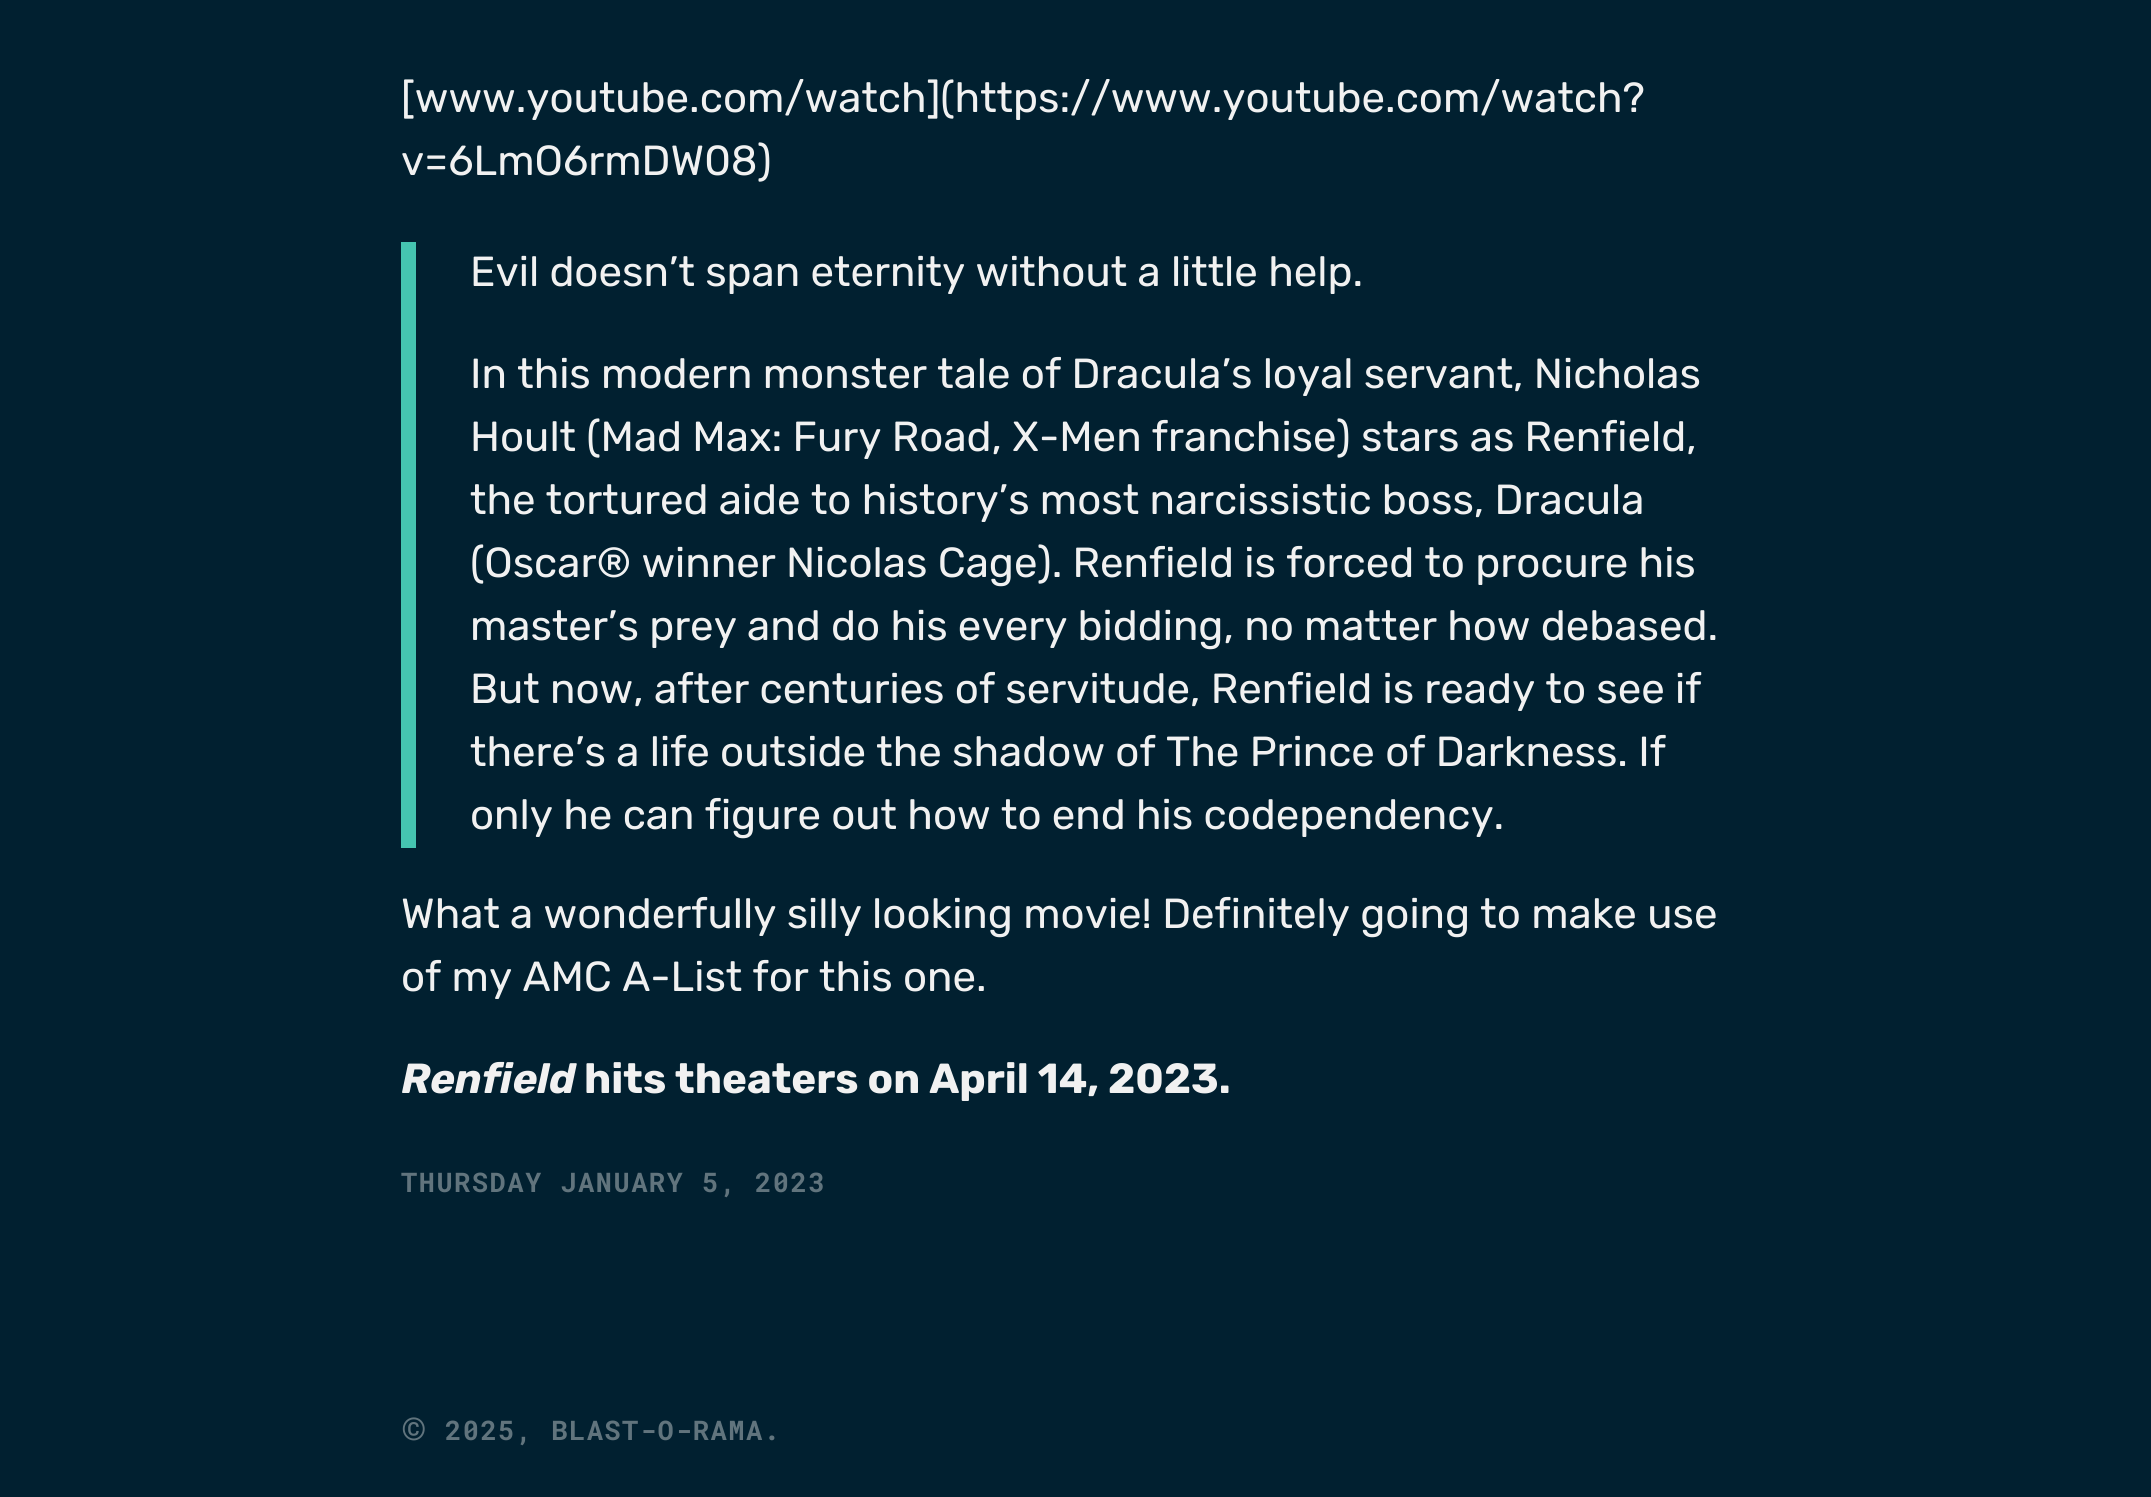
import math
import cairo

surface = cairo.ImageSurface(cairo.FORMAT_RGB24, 2151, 1497)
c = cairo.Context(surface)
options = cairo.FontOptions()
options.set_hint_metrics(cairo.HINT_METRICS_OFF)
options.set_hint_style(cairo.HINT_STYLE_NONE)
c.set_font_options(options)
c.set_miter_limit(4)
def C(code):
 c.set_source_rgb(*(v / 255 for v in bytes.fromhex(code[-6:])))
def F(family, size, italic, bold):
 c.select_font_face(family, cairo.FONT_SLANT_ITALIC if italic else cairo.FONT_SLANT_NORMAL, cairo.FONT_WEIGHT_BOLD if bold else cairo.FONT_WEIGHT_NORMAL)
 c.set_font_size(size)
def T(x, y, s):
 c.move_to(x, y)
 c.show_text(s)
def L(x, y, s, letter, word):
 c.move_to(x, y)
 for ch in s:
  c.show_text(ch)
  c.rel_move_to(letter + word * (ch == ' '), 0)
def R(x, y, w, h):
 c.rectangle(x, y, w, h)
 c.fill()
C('012030')
c.paint()
F('Rubik',42,0,0)
C('f1f1f1')
T(401,112,'[www.youtube.com/watch](https://www.youtube.com/watch?')
T(401,175,'v=6LmO6rmDW08)')
C('45c4b0')
R(401,242,15,606)
C('f1f1f1')
T(470,286,'Evil doesn’t span eternity without a little help.')
T(470,388,'In this modern monster tale of Dracula’s loyal servant, Nicholas')
T(470,451,'Hoult (Mad Max: Fury Road, X-Men franchise) stars as Renfield,')
T(470,514,'the tortured aide to history’s most narcissistic boss, Dracula')
T(470,577,'(Oscar® winner Nicolas Cage). Renfield is forced to procure his')
T(470,640,'master’s prey and do his every bidding, no matter how debased.')
T(470,703,'But now, after centuries of servitude, Renfield is ready to see if')
T(470,766,'there’s a life outside the shadow of The Prince of Darkness. If')
T(470,829,'only he can figure out how to end his codependency.')
T(401,928,'What a wonderfully silly looking movie! Definitely going to make use')
T(401,991,'of my AMC A-List for this one.')
F('Rubik',42,1,1)
T(401,1093,'Renfield')
F('Rubik',42,0,1)
T(584,1093,'hits theaters on April 14, 2023.')
F('Roboto Mono',27,0,1)
C('61747d')
L(401,1192,'THURSDAY JANUARY 5, 2023',1.5,0)
F('Roboto Mono',42,0,1)
L(401,1440,'©',1.5,0)
F('Roboto Mono',27,0,1)
L(445,1440,'2025, BLAST-O-RAMA.',1.5,0)
surface.write_to_png('o.png')
